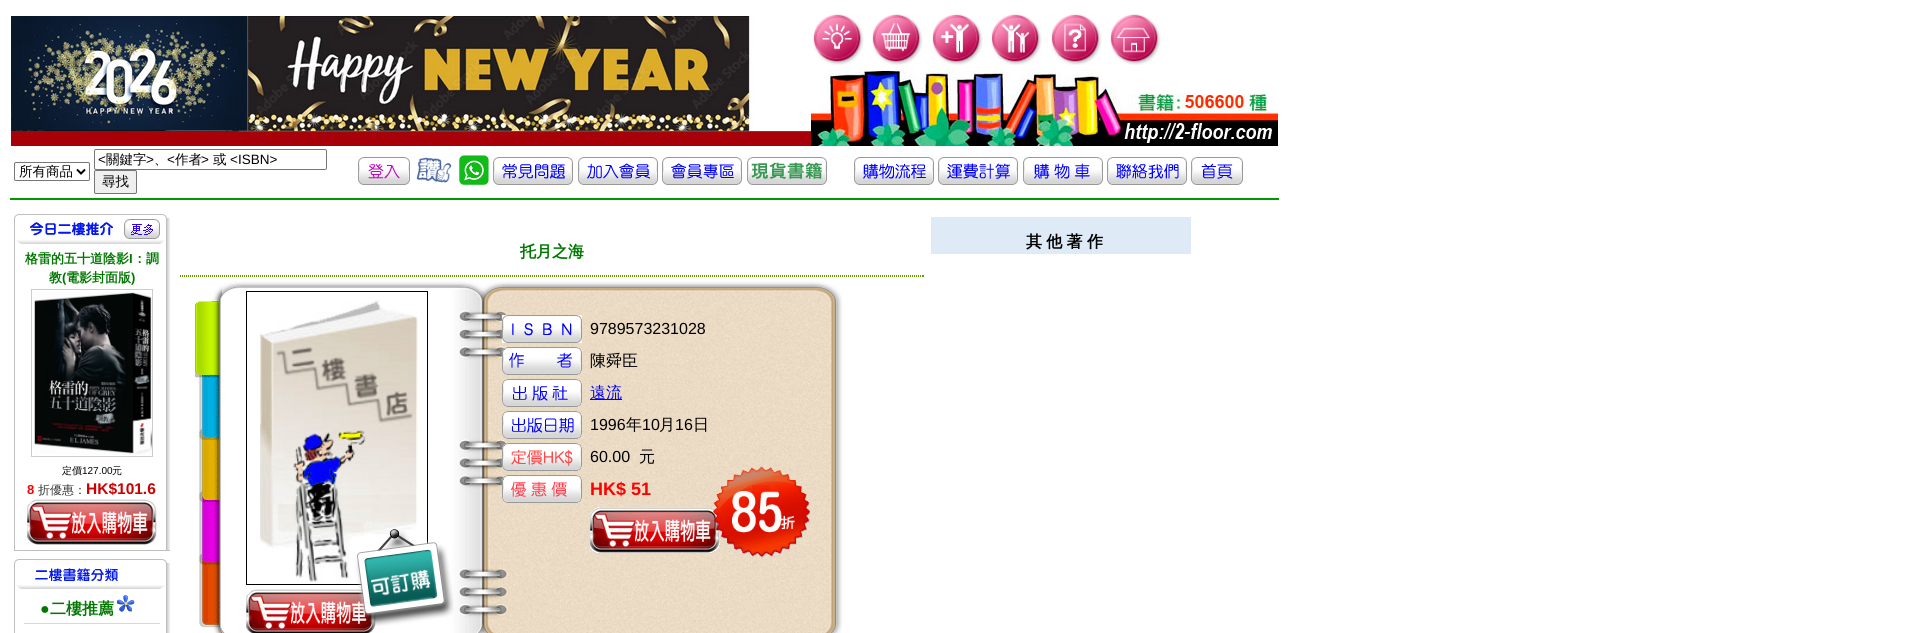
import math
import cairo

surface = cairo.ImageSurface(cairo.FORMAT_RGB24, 1932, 633)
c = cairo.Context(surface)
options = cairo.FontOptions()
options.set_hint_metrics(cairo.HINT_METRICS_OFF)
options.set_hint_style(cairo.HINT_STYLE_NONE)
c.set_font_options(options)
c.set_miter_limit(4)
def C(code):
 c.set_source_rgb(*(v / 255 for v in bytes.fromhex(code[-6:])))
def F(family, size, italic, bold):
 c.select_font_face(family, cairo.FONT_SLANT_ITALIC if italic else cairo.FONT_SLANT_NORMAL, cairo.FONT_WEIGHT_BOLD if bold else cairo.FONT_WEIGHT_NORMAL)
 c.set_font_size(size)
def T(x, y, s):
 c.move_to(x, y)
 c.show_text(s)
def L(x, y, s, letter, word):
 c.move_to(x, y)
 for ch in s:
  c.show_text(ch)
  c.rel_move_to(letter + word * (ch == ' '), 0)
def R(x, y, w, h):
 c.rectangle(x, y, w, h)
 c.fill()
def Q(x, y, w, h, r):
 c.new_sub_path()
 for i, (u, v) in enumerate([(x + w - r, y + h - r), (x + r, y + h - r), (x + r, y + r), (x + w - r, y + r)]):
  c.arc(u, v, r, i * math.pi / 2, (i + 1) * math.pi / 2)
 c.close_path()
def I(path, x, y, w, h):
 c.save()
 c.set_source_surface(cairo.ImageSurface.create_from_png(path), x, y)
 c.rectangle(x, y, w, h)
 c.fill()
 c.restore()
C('ffffff')
c.paint()
I('1.png',195,281,647,352)
C('009900')
R(10,198,1269,2)
I('2.png',11,16,800,130)
I('3.png',813,14,51,51)
I('4.png',872,14,51,51)
I('5.png',932,14,51,51)
I('6.png',991,14,51,51)
I('7.png',1051,14,51,51)
I('8.png',1110,14,51,51)
I('9.png',811,70,467,76)
Q(14.5,162.5,75,18,1.5)
C('767676')
c.set_line_width(1)
c.stroke()
c.new_path()
c.move_to(77,169.5)
c.line_to(81,173.5)
c.line_to(85,169.5)
C('000000')
c.set_line_width(2)
c.stroke()
F('WenQuanYi Zen Hei Medium',13.5,0,0)
T(19,176,'所有商品')
Q(94.5,149.5,232,20,1.5)
C('767676')
c.set_line_width(1)
c.stroke()
F('Liberation Sans',13.5,0,0)
C('000000')
T(98,164,'<')
F('WenQuanYi Zen Hei Medium',13.5,0,0)
T(106,164,'關鍵字')
F('Liberation Sans',13.5,0,0)
T(146,164,'>')
T(167,164,'<')
F('WenQuanYi Zen Hei Medium',13.5,0,0)
T(175,164,'作者')
F('Liberation Sans',13.5,0,0)
T(201,164,'>')
F('WenQuanYi Zen Hei Medium',13.5,0,0)
T(213,164,'或')
F('Liberation Sans',13.5,0,0)
T(230,164,'<ISBN>')
F('WenQuanYi Zen Hei Medium',13.5,0,0)
T(154,164,'、')
C('efefef')
Q(94.5,170.5,42,23,1.5)
c.fill_preserve()
C('767676')
c.stroke()
C('000000')
T(102,186,'尋找')
I('10.png',358,157,52,28)
I('11.png',416,157,36,26)
I('12.png',459,155,30,30)
I('13.png',493,157,80,28)
I('14.png',578,157,80,28)
I('15.png',662,157,80,28)
I('16.png',747,157,80,28)
I('17.png',854,157,80,28)
I('18.png',938,157,80,28)
I('19.png',1023,157,80,28)
I('20.png',1107,157,80,28)
I('21.png',1191,157,52,28)
I('22.png',14,214,156,30)
I('23.png',30,222,83,14)
I('24.png',124,219,36,20)
I('25.png',14,244,156,306)
C('bebebe')
R(14,550,156,1)
F('WenQuanYi Zen Hei',13,0,1)
C('007800')
T(25,263,'格雷的五十道陰影 ：調')
F('Liberation Sans',13,0,1)
T(129,263,'I')
F('WenQuanYi Zen Hei',13,0,1)
T(49,282,'教')
F('Liberation Sans',13,0,1)
T(62,282,'(')
F('WenQuanYi Zen Hei',13,0,1)
T(66,282,'電影封面版')
F('Liberation Sans',13,0,1)
T(131,282,')')
c.rectangle(31.5,289.5,121,167)
C('cccccc')
c.stroke()
I('26.png',34,292,118,163)
F('WenQuanYi Zen Hei Medium',10,0,0)
C('000000')
T(62,474,'定價')
F('Liberation Sans',10,0,0)
T(82,474,'127.00')
F('WenQuanYi Zen Hei Medium',10,0,0)
T(112,474,'元')
F('Liberation Sans',13,0,1)
C('ff0000')
T(27,494,'8')
F('WenQuanYi Zen Hei Medium',12,0,0)
C('333333')
T(38,494,'折優惠：')
F('Liberation Sans',15.5,0,1)
C('cc0000')
T(86,494,'HK$101.6')
I('27.png',27,499,130,46)
I('28.png',14,559,156,30)
I('29.png',35,559,83,30)
I('30.png',14,589,156,44)
C('d7d7d7')
R(24,623,136,1)
F('Liberation Sans',16,0,1)
C('007800')
T(40,614,'●')
F('WenQuanYi Zen Hei',16,0,1)
T(50,614,'二樓推薦')
I('31.png',117,595,18,17)
T(520,257,'托月之海')
c.new_path()
c.move_to(180,275.5)
c.line_to(924,275.5)
C('669900')
c.set_dash([1,1])
c.stroke()
R(923,275,1,2)
c.new_path()
c.move_to(180,276.5)
c.line_to(924,276.5)
c.stroke()
c.rectangle(246.5,291.5,181,293)
C('000000')
c.set_dash([])
c.stroke()
I('32.png',260,300,158,282)
I('33.png',246,589,130,44)
I('34.png',502,315,80,28)
F('Liberation Sans',16,0,0)
T(590,334,'9789573231028')
I('35.png',502,347,80,28)
F('WenQuanYi Zen Hei Medium',16,0,0)
T(590,366,'陳舜臣')
I('36.png',502,379,80,28)
C('0000ee')
R(590,399,32,1)
T(590,398,'遠流')
I('37.png',502,411,80,28)
F('Liberation Sans',16,0,0)
C('000000')
T(590,430,'1996')
F('WenQuanYi Zen Hei Medium',16,0,0)
T(626,430,'年')
F('Liberation Sans',16,0,0)
T(642,430,'10')
F('WenQuanYi Zen Hei Medium',16,0,0)
T(659,430,'月')
F('Liberation Sans',16,0,0)
T(675,430,'16')
F('WenQuanYi Zen Hei Medium',16,0,0)
T(693,430,'日')
I('38.png',502,443,80,28)
F('Liberation Sans',16,0,0)
T(590,462,'60.00')
F('WenQuanYi Zen Hei Medium',16,0,0)
T(639,462,'元')
I('39.png',502,475,80,28)
F('Liberation Sans',18,0,1)
C('ff0000')
T(590,495,'HK$ 51')
I('40.png',590,507,130,46)
C('deebf7')
R(931,217,260,37)
F('WenQuanYi Zen Hei',16,0,1)
C('000000')
L(1026,247,'其 他 著 作',0,-.5)
I('41.png',713,466,98,92)
I('42.png',355,529,99,97)
surface.write_to_png('o.png')
